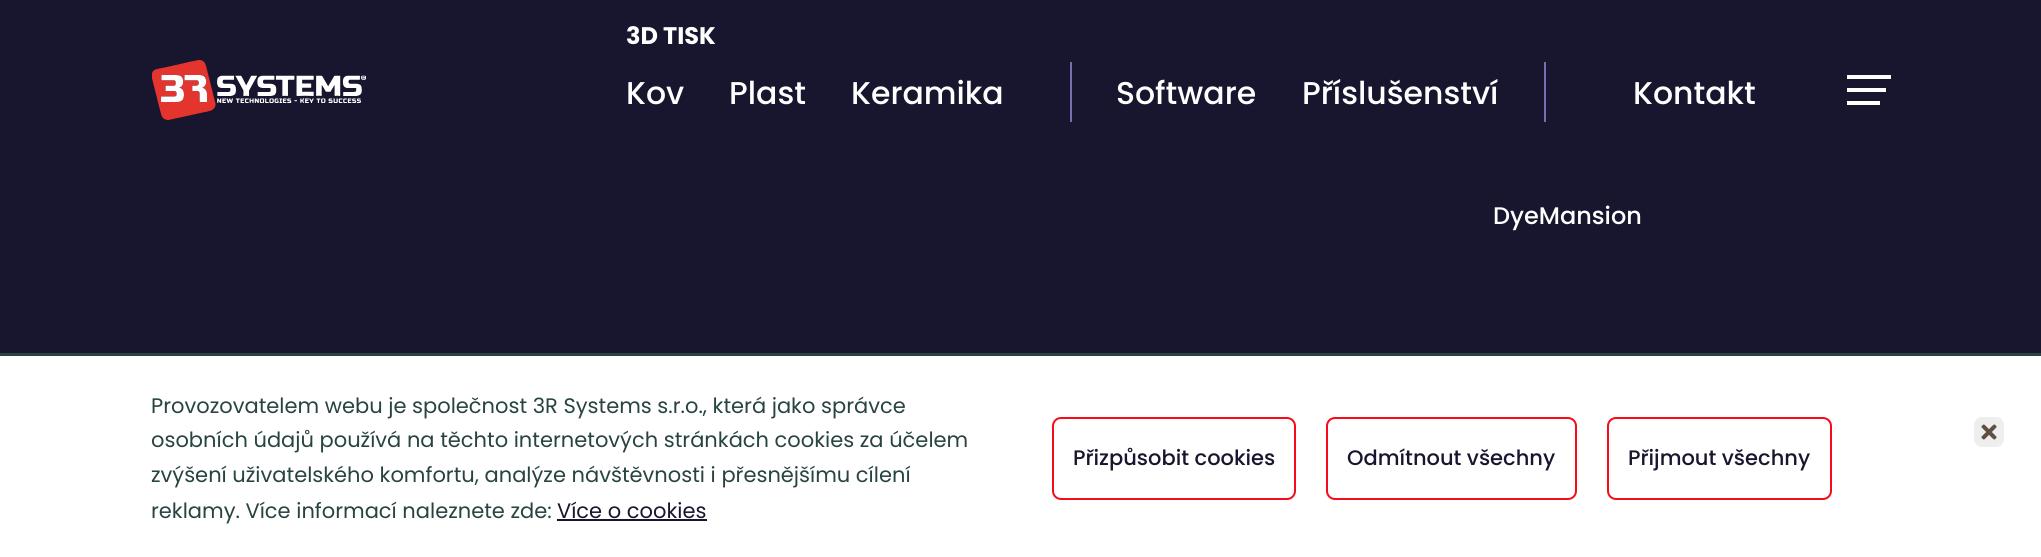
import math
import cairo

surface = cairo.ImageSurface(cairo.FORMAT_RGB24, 2041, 557)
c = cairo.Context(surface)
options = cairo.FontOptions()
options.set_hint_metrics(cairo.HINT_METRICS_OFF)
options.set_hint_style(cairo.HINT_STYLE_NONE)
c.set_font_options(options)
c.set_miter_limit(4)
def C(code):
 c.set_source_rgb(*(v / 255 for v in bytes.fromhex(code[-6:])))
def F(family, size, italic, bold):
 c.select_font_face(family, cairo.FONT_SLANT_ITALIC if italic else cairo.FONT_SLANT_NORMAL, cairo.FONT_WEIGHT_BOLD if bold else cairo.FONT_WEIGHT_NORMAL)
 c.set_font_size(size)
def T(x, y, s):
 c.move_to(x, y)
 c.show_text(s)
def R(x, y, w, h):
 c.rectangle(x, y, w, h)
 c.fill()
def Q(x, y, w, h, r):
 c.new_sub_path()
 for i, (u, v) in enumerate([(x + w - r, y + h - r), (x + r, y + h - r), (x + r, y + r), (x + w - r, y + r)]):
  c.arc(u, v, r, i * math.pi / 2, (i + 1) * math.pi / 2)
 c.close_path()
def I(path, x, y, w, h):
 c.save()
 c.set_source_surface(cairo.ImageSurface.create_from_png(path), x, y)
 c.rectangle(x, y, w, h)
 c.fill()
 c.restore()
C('17162e')
c.paint()
I('1.png',152,60,214,60)
F('Poppins',24,0,1)
C('ffffff')
T(626,44,'3D TISK')
F('Poppins Medium',31.5,0,0)
T(626,104,'Kov')
T(729,104,'Plast')
T(851,104,'Keramika')
C('7370b2')
R(1070,62,2,60)
C('ffffff')
T(1116,104,'Software')
T(1302,104,'Příslušenství')
C('7370b2')
R(1544,62,2,60)
C('ffffff')
T(1633,104,'Kontakt')
R(1847,75,44,4)
R(1847,88,39,4)
R(1847,101,33,4)
F('Poppins Medium',24,0,0)
T(1493,224,'DyeMansion')
C('274441')
R(0,353,2041,3)
C('ffffff')
R(0,356,2041,201)
F('Poppins',21,0,0)
C('274441')
T(151,413,'Provozovatelem webu je společnost 3R Systems s.r.o., která jako správce')
T(151,447,'osobních údajů používá na těchto internetových stránkách cookies za účelem')
T(151,482,'zvýšení uživatelského komfortu, analýze návštěvnosti i přesnějšímu cílení')
T(151,518,'reklamy. Více informací naleznete zde:')
C('17162e')
T(557,518,'Více o cookies')
R(557,519,150,2)
Q(1053,418,242,81,8)
C('f80a1a')
c.stroke()
F('Poppins Medium',21,0,0)
C('17162e')
T(1073,465,'Přizpůsobit cookies')
Q(1327,418,249,81,8)
C('f80a1a')
c.stroke()
C('17162e')
T(1347,465,'Odmítnout všechny')
Q(1608,418,223,81,8)
C('f80a1a')
c.stroke()
C('17162e')
T(1628,465,'Přijmout všechny')
I('2.png',1974,417,30,30)
surface.write_to_png('o.png')
